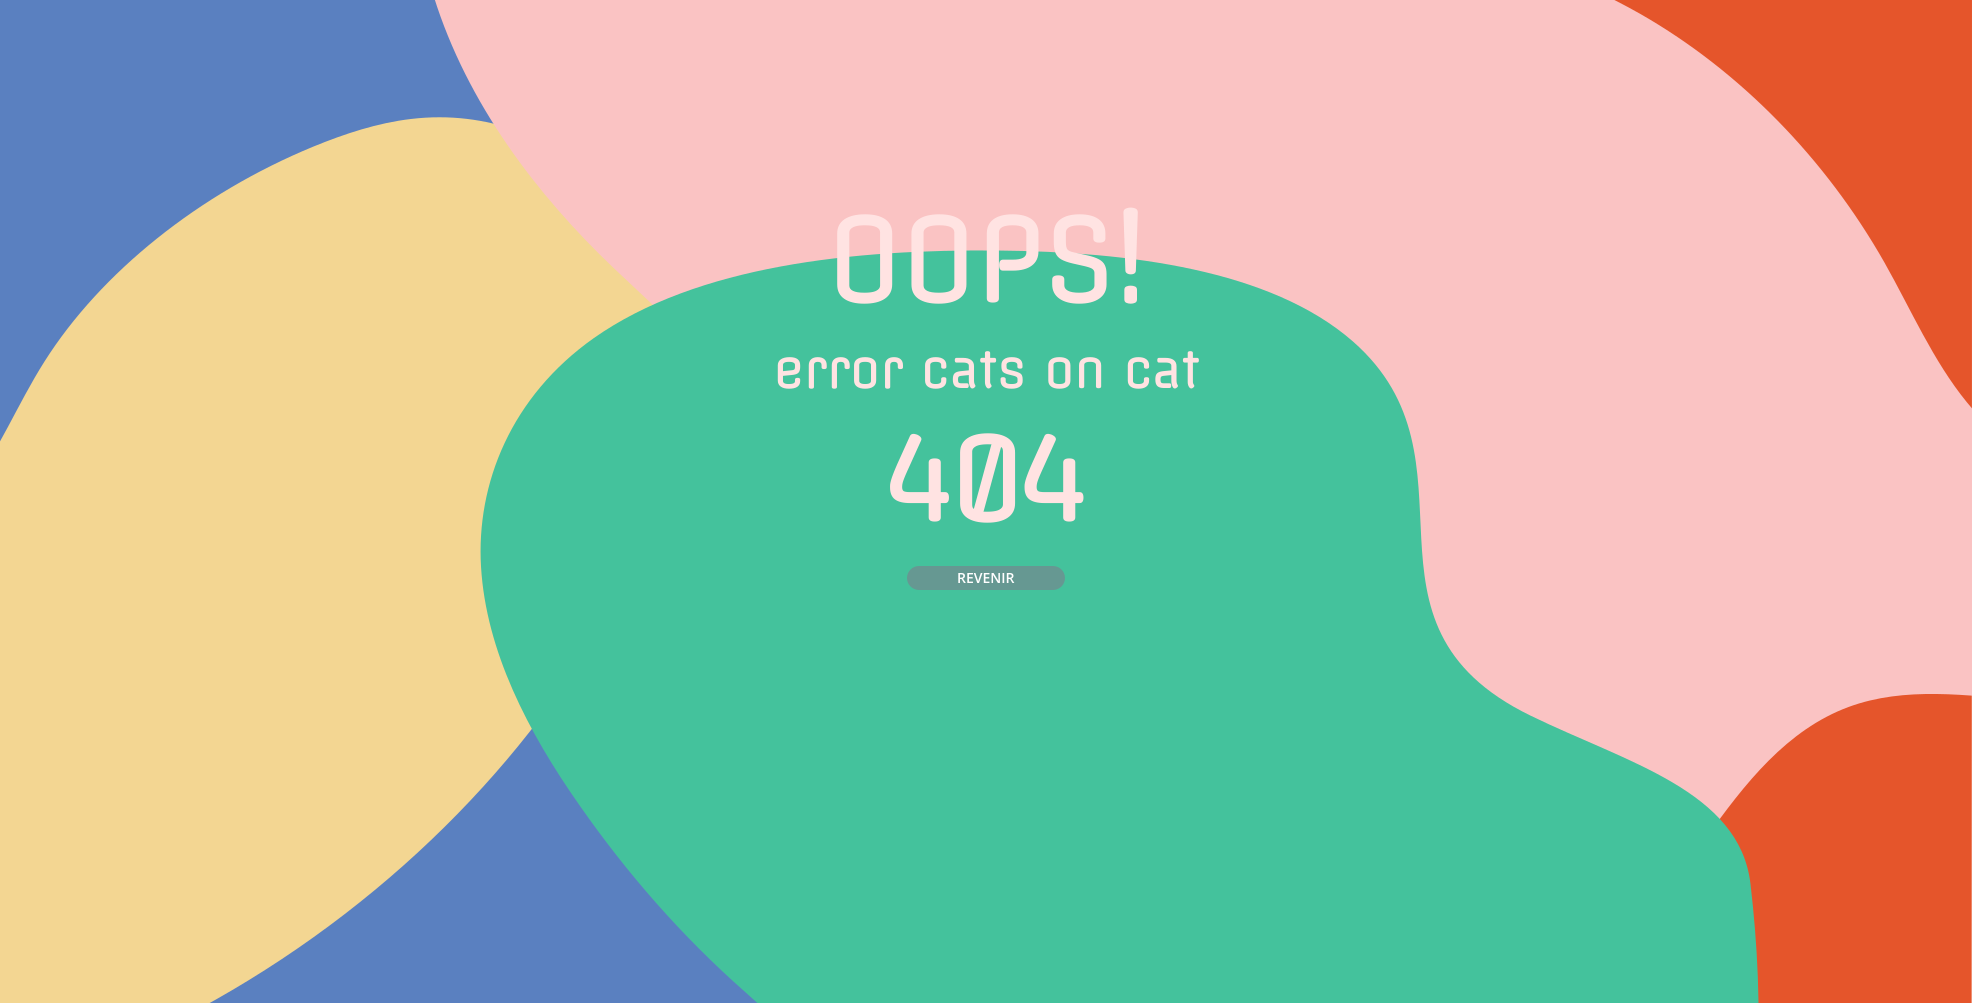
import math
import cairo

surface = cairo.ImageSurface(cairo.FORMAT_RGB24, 1972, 1003)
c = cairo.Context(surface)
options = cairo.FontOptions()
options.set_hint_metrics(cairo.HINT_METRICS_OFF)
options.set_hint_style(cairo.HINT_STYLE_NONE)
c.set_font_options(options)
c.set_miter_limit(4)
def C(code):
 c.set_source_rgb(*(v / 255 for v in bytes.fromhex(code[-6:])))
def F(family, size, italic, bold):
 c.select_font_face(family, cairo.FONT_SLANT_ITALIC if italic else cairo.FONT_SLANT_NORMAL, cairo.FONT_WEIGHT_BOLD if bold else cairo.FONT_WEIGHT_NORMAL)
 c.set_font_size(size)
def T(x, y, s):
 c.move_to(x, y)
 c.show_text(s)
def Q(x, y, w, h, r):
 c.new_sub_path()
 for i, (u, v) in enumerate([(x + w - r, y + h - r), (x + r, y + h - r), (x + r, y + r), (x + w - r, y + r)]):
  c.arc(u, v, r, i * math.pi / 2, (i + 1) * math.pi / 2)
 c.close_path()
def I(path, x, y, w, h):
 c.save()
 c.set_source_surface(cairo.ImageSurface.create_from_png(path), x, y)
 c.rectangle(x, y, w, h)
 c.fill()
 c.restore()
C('ffffff')
c.paint()
I('1.png',0,0,1972,1003)
F('Offside',112,0,1)
C('ffe3e2')
T(826,302,'OOPS!')
F('Offside',48,0,1)
T(773,388,'error cats on cat')
F('Offside',112,0,1)
T(885,521,'404')
C('669892')
Q(907,566,158,24,12)
c.fill()
F('Open Sans SemiBold',14,0,0)
C('ffffff')
T(957,583,'REVENIR')
surface.write_to_png('o.png')
